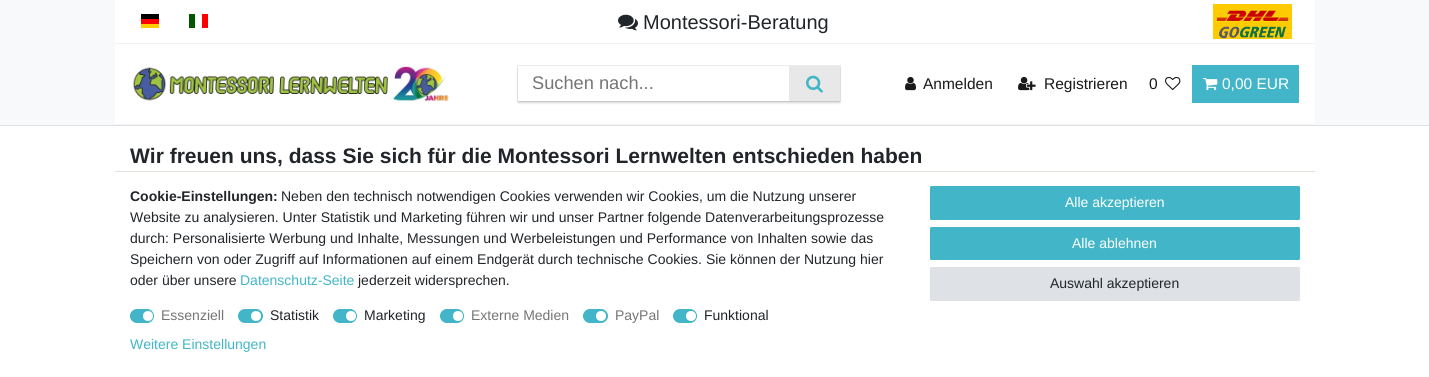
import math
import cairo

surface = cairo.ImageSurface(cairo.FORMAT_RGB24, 1429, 377)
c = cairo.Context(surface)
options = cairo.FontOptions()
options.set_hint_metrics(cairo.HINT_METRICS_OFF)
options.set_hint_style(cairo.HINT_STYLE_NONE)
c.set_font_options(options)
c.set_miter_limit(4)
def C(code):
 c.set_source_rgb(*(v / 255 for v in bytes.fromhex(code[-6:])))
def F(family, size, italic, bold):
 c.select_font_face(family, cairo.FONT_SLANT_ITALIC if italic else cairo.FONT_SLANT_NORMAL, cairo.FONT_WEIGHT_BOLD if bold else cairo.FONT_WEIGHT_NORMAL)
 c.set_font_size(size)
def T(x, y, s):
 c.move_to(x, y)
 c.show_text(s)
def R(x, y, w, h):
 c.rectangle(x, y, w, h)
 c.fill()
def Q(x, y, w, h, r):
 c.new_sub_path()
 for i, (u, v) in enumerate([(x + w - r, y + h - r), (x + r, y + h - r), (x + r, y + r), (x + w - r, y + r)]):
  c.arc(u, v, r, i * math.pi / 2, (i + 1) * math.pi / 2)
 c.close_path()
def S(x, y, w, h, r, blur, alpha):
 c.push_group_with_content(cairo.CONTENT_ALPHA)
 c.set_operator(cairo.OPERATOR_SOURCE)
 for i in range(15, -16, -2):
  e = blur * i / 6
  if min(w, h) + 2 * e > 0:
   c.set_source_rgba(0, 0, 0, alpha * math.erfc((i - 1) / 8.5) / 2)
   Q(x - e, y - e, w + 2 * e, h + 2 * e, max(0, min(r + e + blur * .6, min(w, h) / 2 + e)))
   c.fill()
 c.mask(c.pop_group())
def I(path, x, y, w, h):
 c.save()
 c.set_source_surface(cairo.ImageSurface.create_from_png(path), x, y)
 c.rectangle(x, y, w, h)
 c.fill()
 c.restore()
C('f8f9fa')
c.paint()
C('ffffff')
R(115,0,1200,43)
C('f3f3f3')
R(115,43,1200,1)
C('ffcc00')
R(141,24,18,4)
C('000000')
R(141,14,18,5)
C('ff0000')
R(141,19,18,5)
C('005700')
R(189,14,6,14)
C('fc0000')
R(202,14,6,14)
I('1.png',618,14,20,17)
F('Liberation Sans',20,0,0)
C('212529')
T(643,29,'Montessori-Beratung')
I('2.png',1213,4,79,35)
C('ffffff')
R(115,44,1200,80)
C('f3f3f3')
R(115,124,1200,1)
I('3.png',133,66,316,36)
c.rectangle(517.5,65.5,323,36)
C('ebebeb')
c.set_line_width(1)
c.stroke()
c.save()
c.set_fill_rule(cairo.FILL_RULE_EVEN_ODD)
c.new_path()
c.move_to(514,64)
c.line_to(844,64)
c.line_to(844,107)
c.line_to(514,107)
c.close_path()
c.move_to(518,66)
c.line_to(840,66)
c.line_to(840,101)
c.line_to(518,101)
c.close_path()
c.clip()
C('000000')
S(518,68,322,35,0,1,.16)
c.restore()
F('Liberation Sans',18.25,0,0)
C('757575')
T(532,89,'Suchen nach...')
C('e8e8e8')
R(789,66,51,35)
I('4.png',806,75,17,18)
I('5.png',905,76,11,15)
F('Liberation Sans',15.5,0,0)
C('191919')
T(923,89,'Anmelden')
I('6.png',1018,76,18,15)
T(1044,89,'Registrieren')
T(1149,89,'0')
I('7.png',1165,76,16,15)
C('42b6c8')
R(1192,65,107,38)
I('8.png',1203,78,15,13)
C('ffffff')
T(1222,89,'0,00 EUR')
R(0,126,1429,251)
C('dee2e6')
R(0,125,1429,1)
C('e3e0d9')
R(115,171,1200,1)
F('Liberation Sans',21,0,1)
C('212529')
T(130,163,'Wir freuen uns, dass Sie sich für die Montessori Lernwelten entschieden haben')
F('Liberation Sans',14,0,1)
T(130,201,'Cookie-Einstellungen:')
F('Liberation Sans',14,0,0)
T(281,201,'Neben den technisch notwendigen Cookies verwenden wir Cookies, um die Nutzung unserer')
T(130,222,'Website zu analysieren. Unter Statistik und Marketing führen wir und unser Partner folgende Datenverarbeitungsprozesse')
T(130,243,'durch: Personalisierte Werbung und Inhalte, Messungen und Werbeleistungen und Performance von Inhalten sowie das')
T(130,264,'Speichern von oder Zugriff auf Informationen auf einem Endgerät durch technische Cookies. Sie können der Nutzung hier')
T(130,285,'oder über unsere')
C('42b6c8')
T(240,285,'Datenschutz-Seite')
C('212529')
T(358,285,'jederzeit widersprechen.')
C('42b6c8')
Q(130.5,309.5,23,13,6.5)
c.fill_preserve()
c.stroke()
C('757575')
T(161,320,'Essenziell')
C('ffffff')
c.new_path()
c.arc(148,316,5,0,2 * math.pi)
c.fill()
C('42b6c8')
Q(238.5,309.5,24,13,6.5)
c.fill_preserve()
c.stroke()
C('212529')
T(270,320,'Statistik')
C('ffffff')
c.new_path()
c.arc(256,316,5,0,2 * math.pi)
c.fill()
C('42b6c8')
Q(333.5,309.5,23,13,6.5)
c.fill_preserve()
c.stroke()
C('212529')
T(364,320,'Marketing')
C('ffffff')
c.new_path()
c.arc(351,316,5,0,2 * math.pi)
c.fill()
C('42b6c8')
Q(440.5,309.5,23,13,6.5)
c.fill_preserve()
c.stroke()
C('757575')
T(471,320,'Externe Medien')
C('ffffff')
c.new_path()
c.arc(458,316,5,0,2 * math.pi)
c.fill()
C('42b6c8')
Q(583.5,309.5,24,13,6.5)
c.fill_preserve()
c.stroke()
C('757575')
T(615,320,'PayPal')
C('ffffff')
c.new_path()
c.arc(601,316,5,0,2 * math.pi)
c.fill()
C('42b6c8')
Q(673.5,309.5,23,13,6.5)
c.fill_preserve()
c.stroke()
C('212529')
T(704,320,'Funktional')
C('ffffff')
c.new_path()
c.arc(691,316,5,0,2 * math.pi)
c.fill()
C('42b6c8')
T(130,349,'Weitere Einstellungen')
Q(930.5,186.5,369,33,1)
c.fill_preserve()
c.stroke()
C('ffffff')
T(1065,207,'Alle akzeptieren')
C('42b6c8')
Q(930.5,227.5,369,32,1)
c.fill_preserve()
c.stroke()
C('ffffff')
T(1072,248,'Alle ablehnen')
C('dee2e6')
Q(930.5,267.5,369,33,1)
c.fill_preserve()
c.stroke()
C('212529')
T(1050,288,'Auswahl akzeptieren')
surface.write_to_png('o.png')
